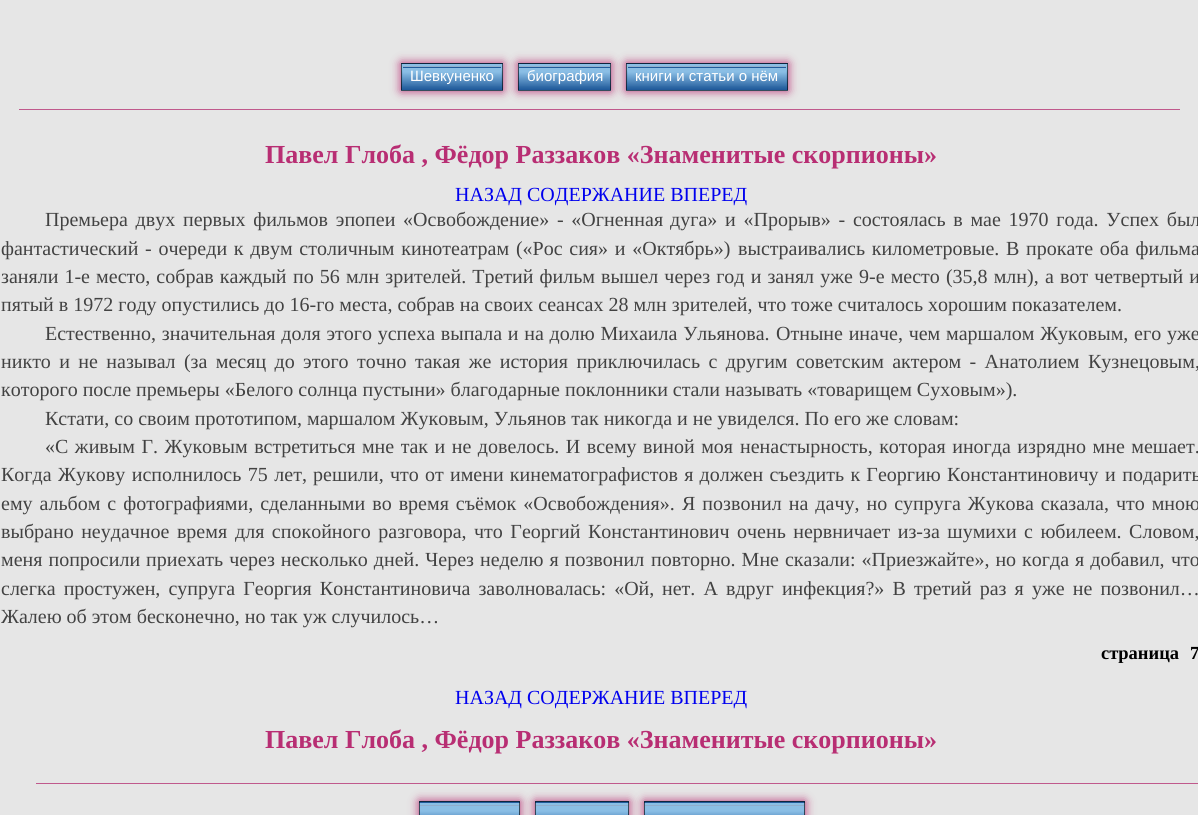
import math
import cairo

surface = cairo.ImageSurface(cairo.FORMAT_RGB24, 1198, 815)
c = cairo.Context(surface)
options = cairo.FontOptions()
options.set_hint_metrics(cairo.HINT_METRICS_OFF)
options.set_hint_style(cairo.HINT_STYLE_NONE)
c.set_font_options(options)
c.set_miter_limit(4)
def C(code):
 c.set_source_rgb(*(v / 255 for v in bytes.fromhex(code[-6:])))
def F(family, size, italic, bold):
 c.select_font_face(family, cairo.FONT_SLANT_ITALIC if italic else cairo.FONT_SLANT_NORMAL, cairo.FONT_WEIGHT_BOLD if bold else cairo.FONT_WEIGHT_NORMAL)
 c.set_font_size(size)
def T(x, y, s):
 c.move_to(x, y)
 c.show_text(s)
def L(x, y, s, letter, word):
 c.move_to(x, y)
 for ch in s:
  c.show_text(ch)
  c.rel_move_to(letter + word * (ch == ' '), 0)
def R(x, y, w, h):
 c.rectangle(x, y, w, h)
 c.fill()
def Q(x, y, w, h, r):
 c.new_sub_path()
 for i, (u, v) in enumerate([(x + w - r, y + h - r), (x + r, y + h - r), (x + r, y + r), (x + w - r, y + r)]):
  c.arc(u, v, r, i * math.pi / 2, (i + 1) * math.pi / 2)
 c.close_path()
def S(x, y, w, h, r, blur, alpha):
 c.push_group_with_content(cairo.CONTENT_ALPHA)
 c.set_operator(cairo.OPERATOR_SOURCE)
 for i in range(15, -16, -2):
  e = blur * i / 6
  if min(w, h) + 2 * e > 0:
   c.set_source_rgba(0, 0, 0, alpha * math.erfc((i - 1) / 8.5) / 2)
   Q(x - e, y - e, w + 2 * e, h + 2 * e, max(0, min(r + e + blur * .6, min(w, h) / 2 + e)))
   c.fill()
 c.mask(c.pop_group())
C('e6e6e6')
c.paint()
C('c0598c')
R(19,109,1161,1)
C('b82e73')
S(401,63,102,28,0,5,1)
gradient = cairo.LinearGradient(452,37,452,64)
gradient.add_color_stop_rgba(.22,0.541,0.745,0.898,1)
gradient.add_color_stop_rgba(1,0.118,0.345,0.6,1)
c.set_source(gradient)
R(401,63,102,1)
gradient = cairo.LinearGradient(452,64,452,90)
gradient.add_color_stop_rgba(.22,0.541,0.745,0.898,1)
gradient.add_color_stop_rgba(1,0.118,0.345,0.6,1)
c.set_source(gradient)
R(401,64,102,26)
gradient = cairo.LinearGradient(452,90,452,116)
gradient.add_color_stop_rgba(.22,0.541,0.745,0.898,1)
gradient.add_color_stop_rgba(1,0.118,0.345,0.6,1)
c.set_source(gradient)
R(401,90,102,1)
c.rectangle(401.5,63.5,101,27)
c.set_source_rgba(0,0,0,0.6)
c.set_line_width(1)
c.stroke()
gradient = cairo.LinearGradient(452,45,452,68)
gradient.add_color_stop_rgba(.22,0.541,0.745,0.898,1)
gradient.add_color_stop_rgba(1,0.118,0.345,0.6,1)
c.set_source(gradient)
R(403,67,98,1)
gradient = cairo.LinearGradient(452,67,452,90)
gradient.add_color_stop_rgba(.22,0.541,0.745,0.898,1)
gradient.add_color_stop_rgba(1,0.118,0.345,0.6,1)
c.set_source(gradient)
R(403,70,98,16)
C('93b0cf')
R(403,66,98,1)
F('Liberation Sans',15,0,0)
C('ffffff')
T(410,81,'Шевкуненко')
C('b82e73')
S(518,63,93,28,0,5,1)
gradient = cairo.LinearGradient(564,37,564,64)
gradient.add_color_stop_rgba(.22,0.541,0.745,0.898,1)
gradient.add_color_stop_rgba(1,0.118,0.345,0.6,1)
c.set_source(gradient)
R(518,63,93,1)
gradient = cairo.LinearGradient(564,64,564,90)
gradient.add_color_stop_rgba(.22,0.541,0.745,0.898,1)
gradient.add_color_stop_rgba(1,0.118,0.345,0.6,1)
c.set_source(gradient)
R(518,64,93,26)
gradient = cairo.LinearGradient(564,90,564,116)
gradient.add_color_stop_rgba(.22,0.541,0.745,0.898,1)
gradient.add_color_stop_rgba(1,0.118,0.345,0.6,1)
c.set_source(gradient)
R(518,90,93,1)
c.rectangle(518.5,63.5,92,27)
c.set_source_rgba(0,0,0,0.6)
c.stroke()
gradient = cairo.LinearGradient(564,45,564,68)
gradient.add_color_stop_rgba(.22,0.541,0.745,0.898,1)
gradient.add_color_stop_rgba(1,0.118,0.345,0.6,1)
c.set_source(gradient)
R(519,67,91,1)
gradient = cairo.LinearGradient(564,67,564,90)
gradient.add_color_stop_rgba(.22,0.541,0.745,0.898,1)
gradient.add_color_stop_rgba(1,0.118,0.345,0.6,1)
c.set_source(gradient)
R(519,70,91,16)
C('93b0cf')
R(519,66,91,1)
C('ffffff')
T(527,81,'биография')
C('b82e73')
S(626,63,162,28,0,5,1)
gradient = cairo.LinearGradient(707,37,707,64)
gradient.add_color_stop_rgba(.22,0.541,0.745,0.898,1)
gradient.add_color_stop_rgba(1,0.118,0.345,0.6,1)
c.set_source(gradient)
R(626,63,162,1)
gradient = cairo.LinearGradient(707,64,707,90)
gradient.add_color_stop_rgba(.22,0.541,0.745,0.898,1)
gradient.add_color_stop_rgba(1,0.118,0.345,0.6,1)
c.set_source(gradient)
R(626,64,162,26)
gradient = cairo.LinearGradient(707,90,707,116)
gradient.add_color_stop_rgba(.22,0.541,0.745,0.898,1)
gradient.add_color_stop_rgba(1,0.118,0.345,0.6,1)
c.set_source(gradient)
R(626,90,162,1)
c.rectangle(626.5,63.5,161,27)
c.set_source_rgba(0,0,0,0.6)
c.stroke()
gradient = cairo.LinearGradient(707,45,707,68)
gradient.add_color_stop_rgba(.22,0.541,0.745,0.898,1)
gradient.add_color_stop_rgba(1,0.118,0.345,0.6,1)
c.set_source(gradient)
R(628,67,158,1)
gradient = cairo.LinearGradient(707,67,707,90)
gradient.add_color_stop_rgba(.22,0.541,0.745,0.898,1)
gradient.add_color_stop_rgba(1,0.118,0.345,0.6,1)
c.set_source(gradient)
R(628,70,158,16)
C('93b0cf')
R(628,66,158,1)
C('ffffff')
T(635,81,'книги и статьи о нём')
F('Liberation Serif',26,0,1)
C('b82e73')
T(265,163,'Павел Глоба , Фёдор Раззаков «Знаменитые скорпионы»')
F('Liberation Serif',20,0,0)
C('0000ee')
T(455,201,'НАЗАД СОДЕРЖАНИЕ ВПЕРЕД')
C('424242')
L(45,226,'Премьера двух первых фильмов эпопеи «Освобождение» - «Огненная',0,2.75)
L(670,226,'дуга» и «Прорыв» - состоялась в мае 1970 года. Успех был',0,2.75)
T(1,255,'фантастический')
L(145,255,'- очереди к двум столичным кинотеатрам («Рос сия» и «Октябрь»)',0,1.75)
L(738,255,'выстраивались километровые. В прокате оба фильма',0,1.75)
L(1,283,'заняли 1-е место, собрав каждый',0,1.1)
L(293,283,'по 56 млн зрителей. Третий фильм вышел через год и занял уже 9-е место (35,8 млн),',0,1.1)
L(1045,283,'а вот четвертый и',0,1.1)
T(1,311,'пятый в 1972 году опустились до 16-го места, собрав на своих сеансах 28 млн зрителей, что тоже считалось хорошим показателем.')
L(45,340,'Естественно, значительная доля этого успеха выпала и на долю Михаила Ульянова.',0,.75)
L(776,340,'Отныне иначе, чем маршалом Жуковым, его уже',0,.75)
L(1,368,'никто и не называл (за месяц до этого',0,3.4)
L(357,368,'точно такая же история приключилась с другим советским актером - Анатолием Кузнецовым,',0,3.4)
T(1,396,'которого после премьеры «Белого солнца пустыни» благодарные поклонники стали называть «товарищем Суховым»).')
T(45,425,'Кстати, со своим прототипом, маршалом Жуковым, Ульянов так никогда и не увиделся. По его же словам:')
L(45,453,'«С живым Г. Жуковым встретиться мне так и не довелось. И всему виной моя',0,1.5)
L(740,453,'ненастырность, которая иногда изрядно мне мешает.',0,1.5)
L(1,481,'Когда Жукову исполнилось 75 лет,',0,1.5)
L(313,481,'решили, что от имени кинематографистов я должен съездить к Георгию Константиновичу',0,1.25)
L(1105,481,'и подарить',0,1.5)
L(1,510,'ему альбом с фотографиями, сделанными во время съёмок «Освобождения».',0,2)
L(682,510,'Я позвонил на дачу, но супруга Жукова сказала, что мною',0,2)
L(1,538,'выбрано неудачное время',0,2.5)
L(235,538,'для спокойного разговора, что Георгий Константинович очень нервничает из-за шумихи',0,2.5)
L(1024,538,'с юбилеем. Словом,',0,2.5)
L(1,566,'меня попросили приехать через несколько дней. Через неделю я позвонил',0,1)
L(651,566,'повторно. Мне сказали: «Приезжайте», но когда я добавил,',0,1)
T(1171,566,'что')
L(1,595,'слегка простужен, супруга Георгия Константиновича заволновалась: «Ой,',0,3.1)
L(662,595,'нет. А вдруг инфекция?» В третий раз я уже не позвонил…',0,3.1)
T(1,623,'Жалею об этом бесконечно, но так уж случилось…')
F('Liberation Serif',18.5,0,1)
C('000000')
T(1101,659,'страница')
T(1190,659,'7')
F('Liberation Serif',20,0,0)
C('0000ee')
T(455,704,'НАЗАД СОДЕРЖАНИЕ ВПЕРЕД')
F('Liberation Serif',26,0,1)
C('b82e73')
T(265,748,'Павел Глоба , Фёдор Раззаков «Знаменитые скорпионы»')
C('c0598c')
R(36,783,1162,1)
C('b82e73')
S(419,801,101,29,0,5,1)
gradient = cairo.LinearGradient(469,776,469,803)
gradient.add_color_stop_rgba(.22,0.541,0.745,0.898,1)
gradient.add_color_stop_rgba(1,0.118,0.345,0.6,1)
c.set_source(gradient)
R(419,801,101,2)
gradient = cairo.LinearGradient(469,803,469,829)
gradient.add_color_stop_rgba(.22,0.541,0.745,0.898,1)
gradient.add_color_stop_rgba(1,0.118,0.345,0.6,1)
c.set_source(gradient)
R(419,803,101,12)
c.rectangle(419.5,801.5,100,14)
c.set_source_rgba(0,0,0,0.6)
c.stroke()
gradient = cairo.LinearGradient(469,806,469,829)
gradient.add_color_stop_rgba(.22,0.541,0.745,0.898,1)
gradient.add_color_stop_rgba(1,0.118,0.345,0.6,1)
c.set_source(gradient)
R(420,809,99,6)
C('90adcd')
R(420,805,99,1)
C('b82e73')
S(535,801,94,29,0,5,1)
gradient = cairo.LinearGradient(582,776,582,803)
gradient.add_color_stop_rgba(.22,0.541,0.745,0.898,1)
gradient.add_color_stop_rgba(1,0.118,0.345,0.6,1)
c.set_source(gradient)
R(535,801,94,2)
gradient = cairo.LinearGradient(582,803,582,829)
gradient.add_color_stop_rgba(.22,0.541,0.745,0.898,1)
gradient.add_color_stop_rgba(1,0.118,0.345,0.6,1)
c.set_source(gradient)
R(535,803,94,12)
c.rectangle(535.5,801.5,93,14)
c.set_source_rgba(0,0,0,0.6)
c.stroke()
gradient = cairo.LinearGradient(582,806,582,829)
gradient.add_color_stop_rgba(.22,0.541,0.745,0.898,1)
gradient.add_color_stop_rgba(1,0.118,0.345,0.6,1)
c.set_source(gradient)
R(536,809,92,6)
C('90adcd')
R(536,805,92,1)
C('b82e73')
S(644,801,161,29,0,5,1)
gradient = cairo.LinearGradient(724,776,724,803)
gradient.add_color_stop_rgba(.22,0.541,0.745,0.898,1)
gradient.add_color_stop_rgba(1,0.118,0.345,0.6,1)
c.set_source(gradient)
R(644,801,161,2)
gradient = cairo.LinearGradient(724,803,724,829)
gradient.add_color_stop_rgba(.22,0.541,0.745,0.898,1)
gradient.add_color_stop_rgba(1,0.118,0.345,0.6,1)
c.set_source(gradient)
R(644,803,161,12)
c.rectangle(644.5,801.5,160,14)
c.set_source_rgba(0,0,0,0.6)
c.stroke()
gradient = cairo.LinearGradient(724,806,724,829)
gradient.add_color_stop_rgba(.22,0.541,0.745,0.898,1)
gradient.add_color_stop_rgba(1,0.118,0.345,0.6,1)
c.set_source(gradient)
R(645,809,159,6)
C('90adcd')
R(645,805,159,1)
surface.write_to_png('o.png')
